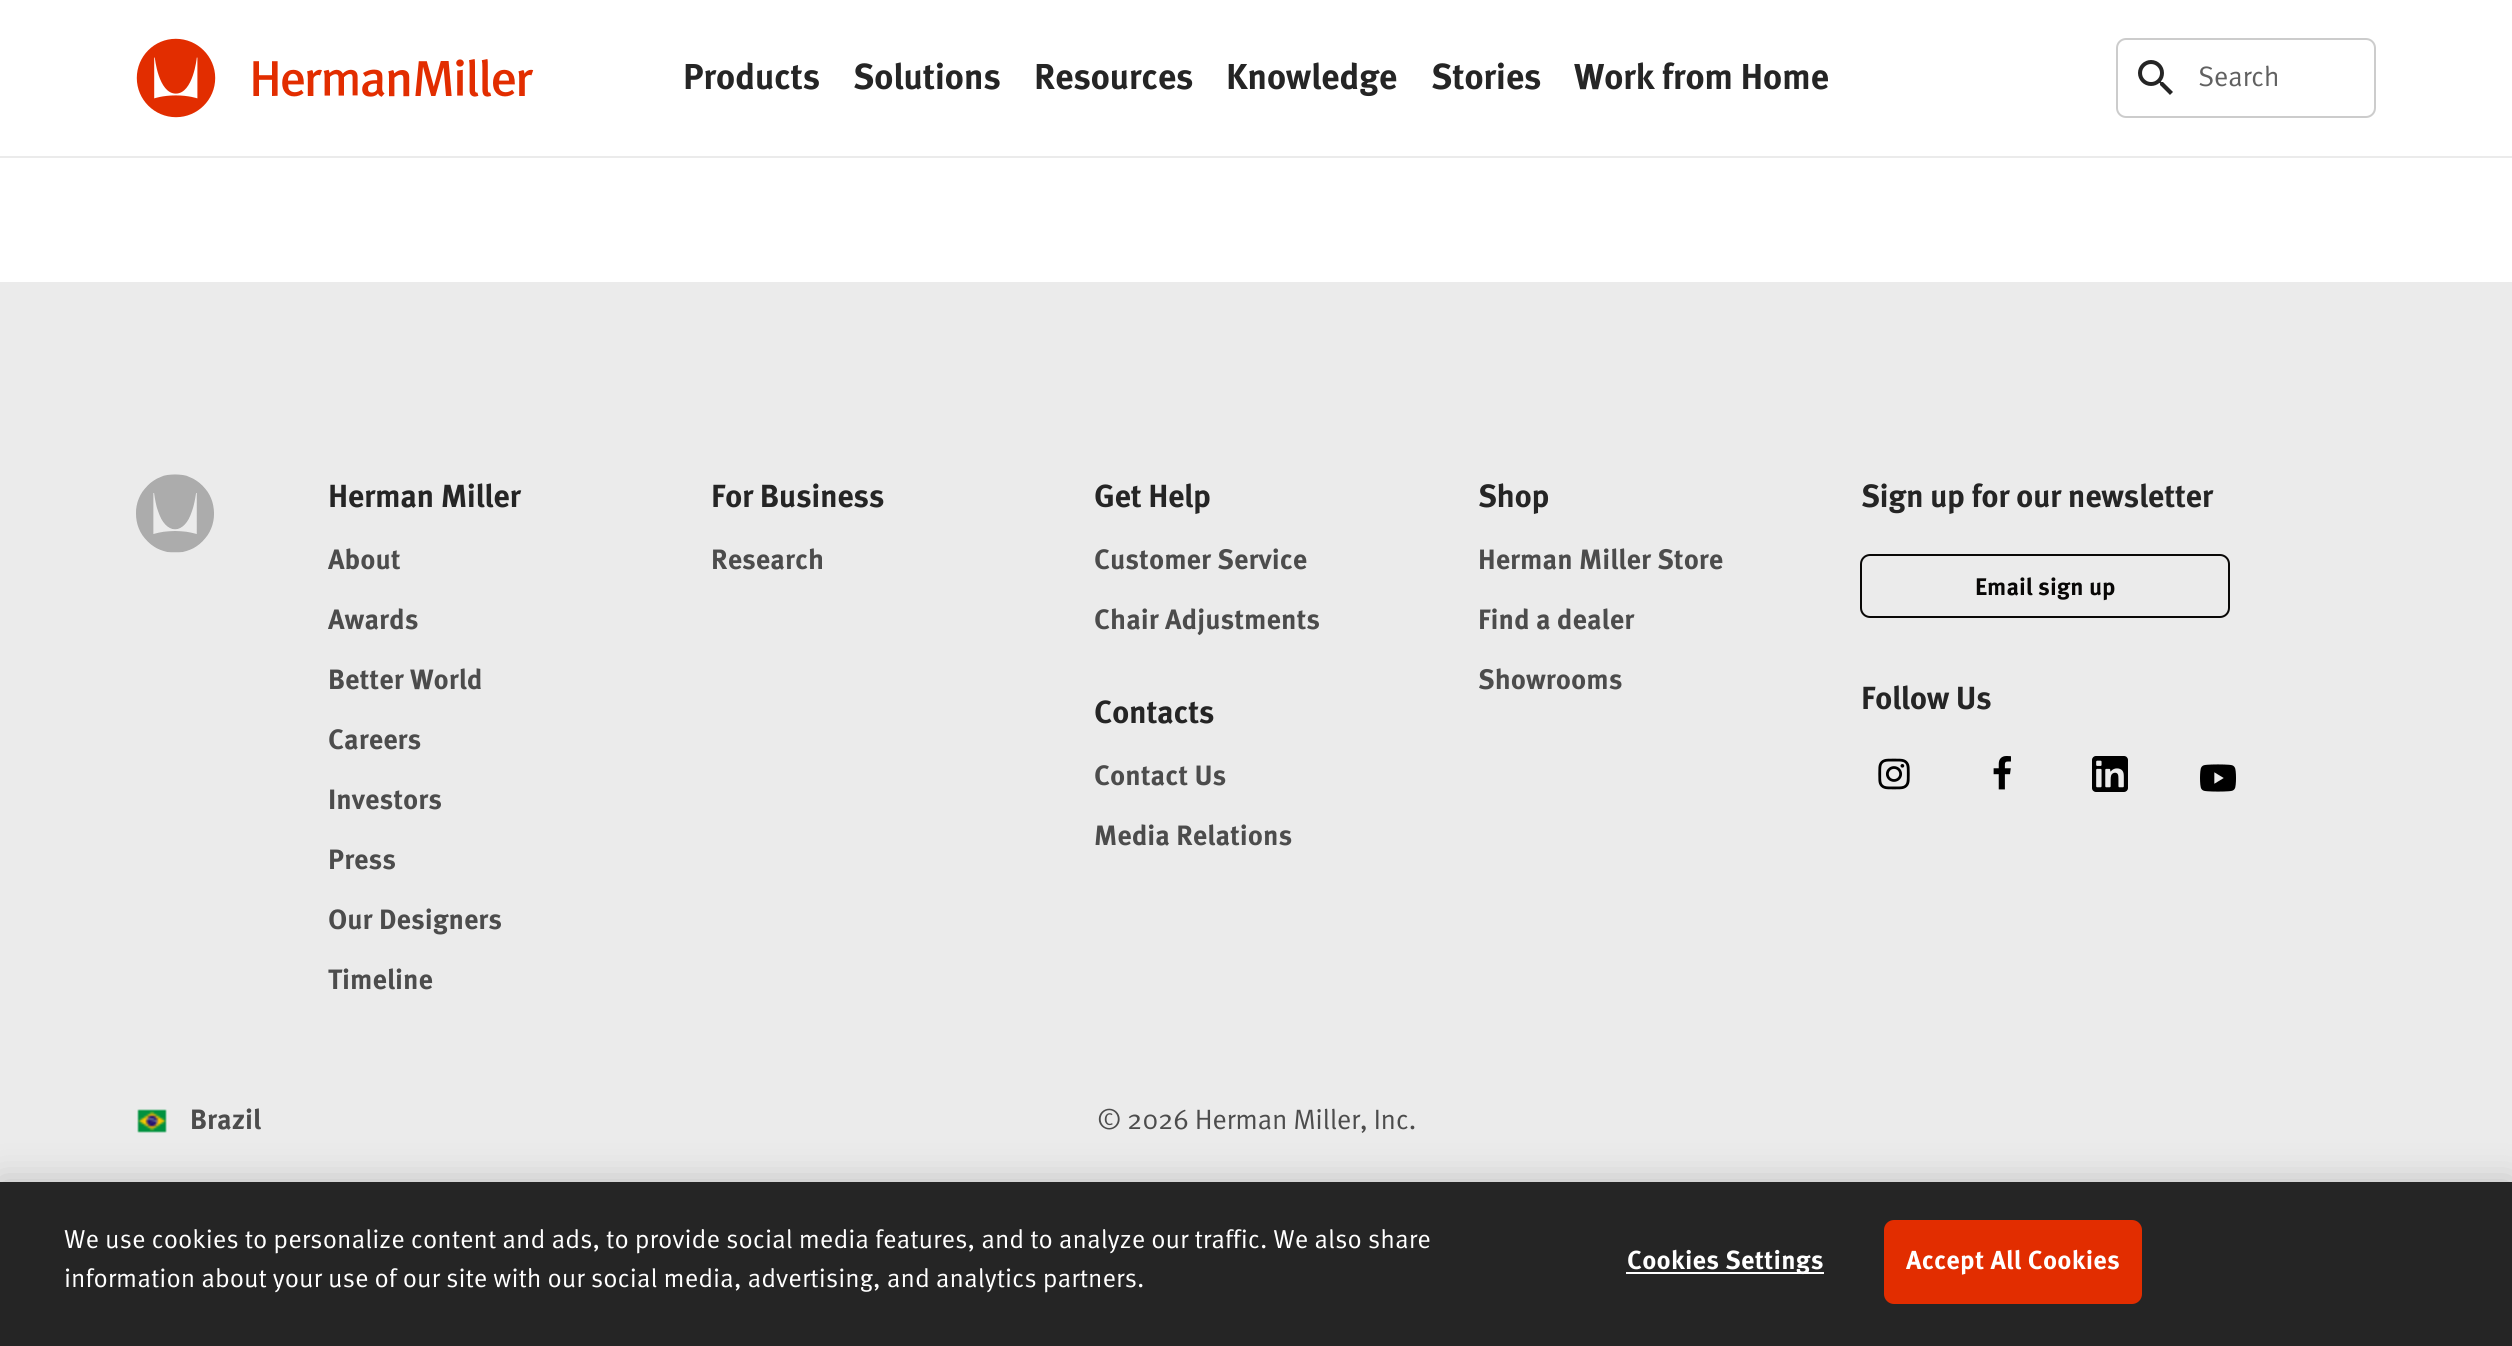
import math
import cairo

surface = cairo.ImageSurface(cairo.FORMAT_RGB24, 2512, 1346)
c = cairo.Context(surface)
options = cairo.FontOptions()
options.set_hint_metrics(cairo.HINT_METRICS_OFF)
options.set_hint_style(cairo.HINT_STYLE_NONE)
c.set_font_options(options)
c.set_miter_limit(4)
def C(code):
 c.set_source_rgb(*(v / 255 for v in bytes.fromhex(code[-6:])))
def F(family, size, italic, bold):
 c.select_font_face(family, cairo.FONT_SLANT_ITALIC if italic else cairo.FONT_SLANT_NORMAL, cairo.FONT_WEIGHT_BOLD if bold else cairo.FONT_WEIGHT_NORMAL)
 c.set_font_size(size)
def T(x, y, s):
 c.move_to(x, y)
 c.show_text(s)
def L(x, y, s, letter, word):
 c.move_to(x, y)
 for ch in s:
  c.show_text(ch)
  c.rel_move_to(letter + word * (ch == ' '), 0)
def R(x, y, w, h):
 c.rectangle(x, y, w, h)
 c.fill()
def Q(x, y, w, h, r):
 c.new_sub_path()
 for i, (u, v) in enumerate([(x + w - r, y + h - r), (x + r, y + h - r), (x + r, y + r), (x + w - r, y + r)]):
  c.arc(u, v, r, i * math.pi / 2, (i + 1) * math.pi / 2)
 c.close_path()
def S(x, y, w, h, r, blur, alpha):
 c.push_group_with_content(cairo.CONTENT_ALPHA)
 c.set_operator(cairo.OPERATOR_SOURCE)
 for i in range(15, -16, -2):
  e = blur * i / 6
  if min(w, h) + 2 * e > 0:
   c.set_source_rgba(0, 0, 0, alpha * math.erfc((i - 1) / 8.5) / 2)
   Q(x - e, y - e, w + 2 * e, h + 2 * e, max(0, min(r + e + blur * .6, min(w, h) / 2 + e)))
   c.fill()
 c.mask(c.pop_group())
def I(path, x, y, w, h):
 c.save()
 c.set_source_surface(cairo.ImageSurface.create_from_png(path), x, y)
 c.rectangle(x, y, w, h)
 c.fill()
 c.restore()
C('ffffff')
c.paint()
C('ebebeb')
R(0,156,2512,2)
I('1.png',136,38,398,80)
F('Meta',36,0,1)
C('252525')
L(683,89,'Products',-.4,0)
L(853,89,'Solutions',-.4,0)
L(1034,89,'Resources',-.4,0)
L(1226,89,'Knowledge',-.4,0)
L(1431,89,'Stories',-.4,0)
L(1574,89,'Work from Home',-.4,0)
Q(2117,39,258,78,9)
C('cccccc')
c.stroke()
I('2.png',2138,60,35,35)
F('Meta',28,0,0)
C('616161')
L(2198,86,'Search',-.4,0)
C('ebebeb')
R(0,282,2512,900)
I('3.png',136,474,78,79)
F('Meta',32,0,1)
C('252525')
L(328,507,'Herman Miller',-.4,0)
F('Meta',28,0,1)
C('4c4c4c')
T(328,569,'About')
T(328,629,'Awards')
T(328,689,'Better World')
T(328,749,'Careers')
T(328,809,'Investors')
T(328,869,'Press')
T(328,929,'Our Designers')
T(328,989,'Timeline')
F('Meta',32,0,1)
C('252525')
L(711,507,'For Business',-.4,0)
F('Meta',28,0,1)
C('4c4c4c')
T(711,569,'Research')
F('Meta',32,0,1)
C('252525')
L(1094,507,'Get Help',-.4,0)
F('Meta',28,0,1)
C('4c4c4c')
T(1094,569,'Customer Service')
T(1094,629,'Chair Adjustments')
F('Meta',32,0,1)
C('252525')
L(1094,723,'Contacts',-.4,0)
F('Meta',28,0,1)
C('4c4c4c')
T(1094,785,'Contact Us')
T(1094,845,'Media Relations')
F('Meta',32,0,1)
C('252525')
L(1478,507,'Shop',-.4,0)
F('Meta',28,0,1)
C('4c4c4c')
T(1478,569,'Herman Miller Store')
T(1478,629,'Find a dealer')
T(1478,689,'Showrooms')
F('Meta',32,0,1)
C('252525')
L(1861,507,'Sign up for our newsletter',-.4,0)
Q(1861,555,368,62,9)
C('090807')
c.stroke()
F('Meta',24,0,1)
T(1975,595,'Email sign up')
F('Meta',32,0,1)
C('252525')
L(1861,709,'Follow Us',-.4,0)
I('4.png',1878,758,32,32)
I('5.png',1993,756,18,34)
I('6.png',2092,756,36,36)
I('7.png',2200,764,36,28)
I('8.png',137,1109,30,24)
F('Meta',28,0,1)
C('4c4c4c')
T(190,1129,'Brazil')
F('Meta',28,0,0)
L(1097,1129,'© 2026 Herman Miller, Inc.',-.4,0)
C('000000')
S(0,1182,2512,164,0,18,.2)
C('252525')
R(0,1182,2512,164)
F('Meta',26.02,0,0)
C('ffffff')
T(64,1248,'We use cookies to personalize content and ads, to provide social media features, and to analyze our traffic. We also share')
T(64,1287,'information about your use of our site with our social media, advertising, and analytics partners.')
R(1626,1272,198,2)
F('Meta',26.02,0,1)
L(1627,1269,'Cookies Settings',.25,0)
C('e22d00')
Q(1885,1221,256,82,9)
c.fill_preserve()
c.stroke()
C('ffffff')
L(1906,1269,'Accept All Cookies',.25,0)
surface.write_to_png('o.png')
